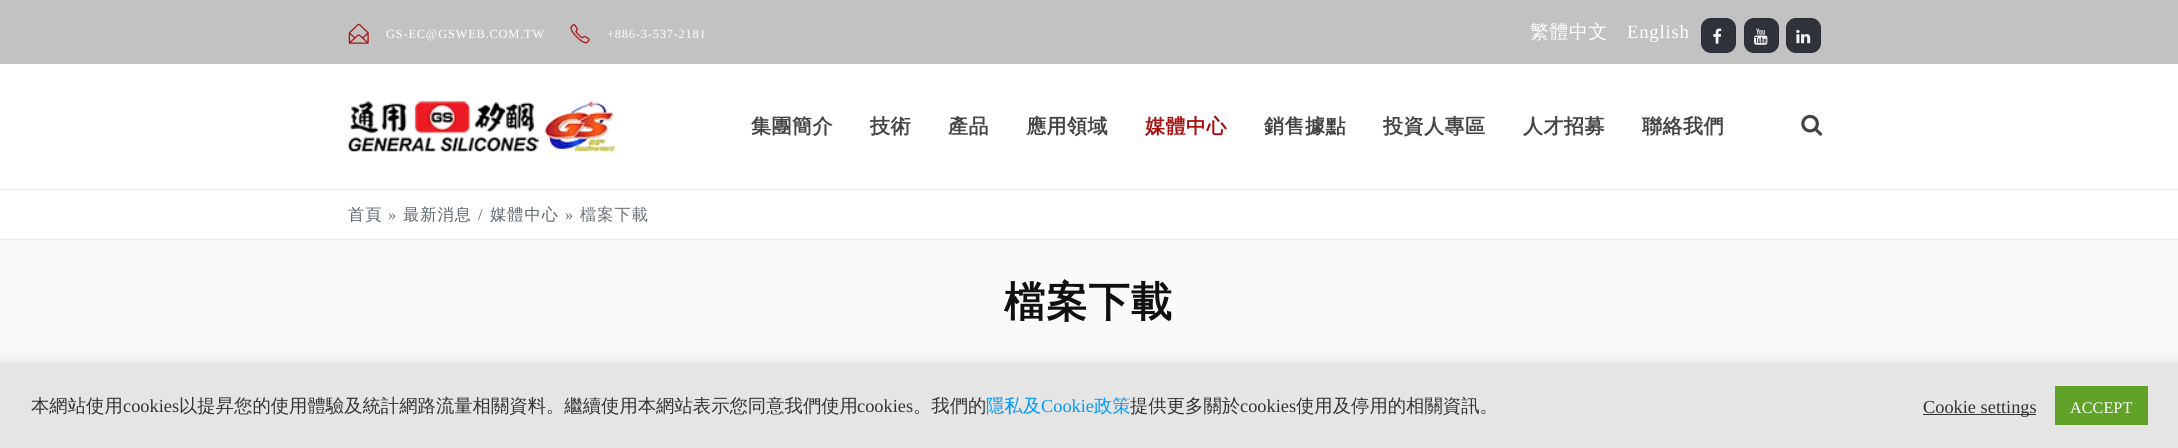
import math
import cairo

surface = cairo.ImageSurface(cairo.FORMAT_RGB24, 2178, 448)
c = cairo.Context(surface)
options = cairo.FontOptions()
options.set_hint_metrics(cairo.HINT_METRICS_OFF)
options.set_hint_style(cairo.HINT_STYLE_NONE)
c.set_font_options(options)
c.set_miter_limit(4)
def C(code):
 c.set_source_rgb(*(v / 255 for v in bytes.fromhex(code[-6:])))
def F(family, size, italic, bold):
 c.select_font_face(family, cairo.FONT_SLANT_ITALIC if italic else cairo.FONT_SLANT_NORMAL, cairo.FONT_WEIGHT_BOLD if bold else cairo.FONT_WEIGHT_NORMAL)
 c.set_font_size(size)
def T(x, y, s):
 c.move_to(x, y)
 c.show_text(s)
def L(x, y, s, letter, word):
 c.move_to(x, y)
 for ch in s:
  c.show_text(ch)
  c.rel_move_to(letter + word * (ch == ' '), 0)
def R(x, y, w, h):
 c.rectangle(x, y, w, h)
 c.fill()
def Q(x, y, w, h, r):
 c.new_sub_path()
 for i, (u, v) in enumerate([(x + w - r, y + h - r), (x + r, y + h - r), (x + r, y + r), (x + w - r, y + r)]):
  c.arc(u, v, r, i * math.pi / 2, (i + 1) * math.pi / 2)
 c.close_path()
def S(x, y, w, h, r, blur, alpha):
 c.push_group_with_content(cairo.CONTENT_ALPHA)
 c.set_operator(cairo.OPERATOR_SOURCE)
 for i in range(15, -16, -2):
  e = blur * i / 6
  if min(w, h) + 2 * e > 0:
   c.set_source_rgba(0, 0, 0, alpha * math.erfc((i - 1) / 8.5) / 2)
   Q(x - e, y - e, w + 2 * e, h + 2 * e, max(0, min(r + e + blur * .6, min(w, h) / 2 + e)))
   c.fill()
 c.mask(c.pop_group())
def I(path, x, y, w, h):
 c.save()
 c.set_source_surface(cairo.ImageSurface.create_from_png(path), x, y)
 c.rectangle(x, y, w, h)
 c.fill()
 c.restore()
C('ffffff')
c.paint()
C('c2c2c2')
R(0,0,2178,64)
I('1.png',348,23,21,21)
F('Liberation Serif',12.5,0,0)
C('ffffff')
L(386,38,'GS-EC@GSWEB.COM.TW',.75,0)
I('2.png',570,24,20,20)
L(607,38,'+886-3-537-2181',.75,0)
F('WenQuanYi Zen Hei Medium',18.75,0,0)
L(1530,38,'繁體中文',.75,0)
F('Liberation Serif',18.75,0,0)
L(1627,38,'English',.75,0)
C('303239')
Q(1701.5,18.5,34,34,9.5)
c.fill_preserve()
C('2c2d34')
c.set_line_width(1)
c.stroke()
I('3.png',1713,28,9,16)
C('303239')
Q(1744.5,18.5,34,34,9.5)
c.fill_preserve()
C('2c2d34')
c.stroke()
I('4.png',1754,28,14,17)
C('303239')
Q(1786.5,18.5,34,34,9.5)
c.fill_preserve()
C('2c2d34')
c.stroke()
I('5.png',1796,29,15,15)
I('6.png',348,101,268,51)
F('WenQuanYi Zen Hei',20,0,1)
C('444444')
L(751,133,'集團簡介',.5,0)
L(870,133,'技術',.5,0)
L(948,133,'產品',.5,0)
L(1026,133,'應用領域',.5,0)
C('a81010')
L(1145,133,'媒體中心',.5,0)
C('444444')
L(1264,133,'銷售據點',.5,0)
L(1383,133,'投資人專區',.5,0)
L(1523,133,'人才招募',.5,0)
L(1642,133,'聯絡我們',.5,0)
I('7.png',1801,114,22,22)
C('eeeeee')
R(0,189,2178,1)
F('WenQuanYi Zen Hei Medium',16.25,0,0)
C('5c646d')
L(348,220,'首頁',1,0)
F('Liberation Serif',16.25,0,0)
C('6c7279')
L(388,220,'»',1,0)
F('WenQuanYi Zen Hei Medium',16.25,0,0)
C('5c646d')
L(403,220,'最新消息',1,0)
F('Liberation Serif',16.25,0,0)
L(478,220,'/',1,0)
F('WenQuanYi Zen Hei Medium',16.25,0,0)
L(490,220,'媒體中心',1,0)
F('Liberation Serif',16.25,0,0)
C('6c7279')
L(565,220,'»',1,0)
F('WenQuanYi Zen Hei Medium',16.25,0,0)
L(580,220,'檔案下載',1,0)
C('fafafa')
R(0,240,2178,123)
C('eeeeee')
R(0,239,2178,1)
F('WenQuanYi Zen Hei',41.25,0,1)
C('101010')
L(1004,316,'檔案下載',1,0)
C('acabab')
S(0,361,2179,87,0,6,.3)
C('e5e5e5')
R(0,363,2178,85)
F('WenQuanYi Zen Hei Medium',18.35,0,0)
C('333333')
T(31,412,'本網站使用')
F('Liberation Serif',18.35,0,0)
T(123,412,'cookies')
F('WenQuanYi Zen Hei Medium',18.35,0,0)
T(179,412,'以提昇您的使用體驗及統計網路流量相關資料。繼續使用本網站表示您同意我們使用')
F('Liberation Serif',18.35,0,0)
T(857,412,'cookies')
F('WenQuanYi Zen Hei Medium',18.35,0,0)
T(913,412,'。我們的')
C('0099ff')
T(986,412,'隱私及')
F('Liberation Serif',18.35,0,0)
T(1041,412,'Cookie')
F('WenQuanYi Zen Hei Medium',18.35,0,0)
T(1094,412,'政策')
C('333333')
T(1130,412,'提供更多關於')
F('Liberation Serif',18.35,0,0)
T(1240,412,'cookies')
F('WenQuanYi Zen Hei Medium',18.35,0,0)
T(1296,412,'使用及停用的相關資訊。')
R(1923,414,113,1)
F('Liberation Serif',18.35,0,0)
T(1923,413,'Cookie settings')
C('61a229')
R(2055,386,93,39)
F('Liberation Serif',16.25,0,0)
C('ffffff')
T(2070,413,'ACCEPT')
surface.write_to_png('o.png')
